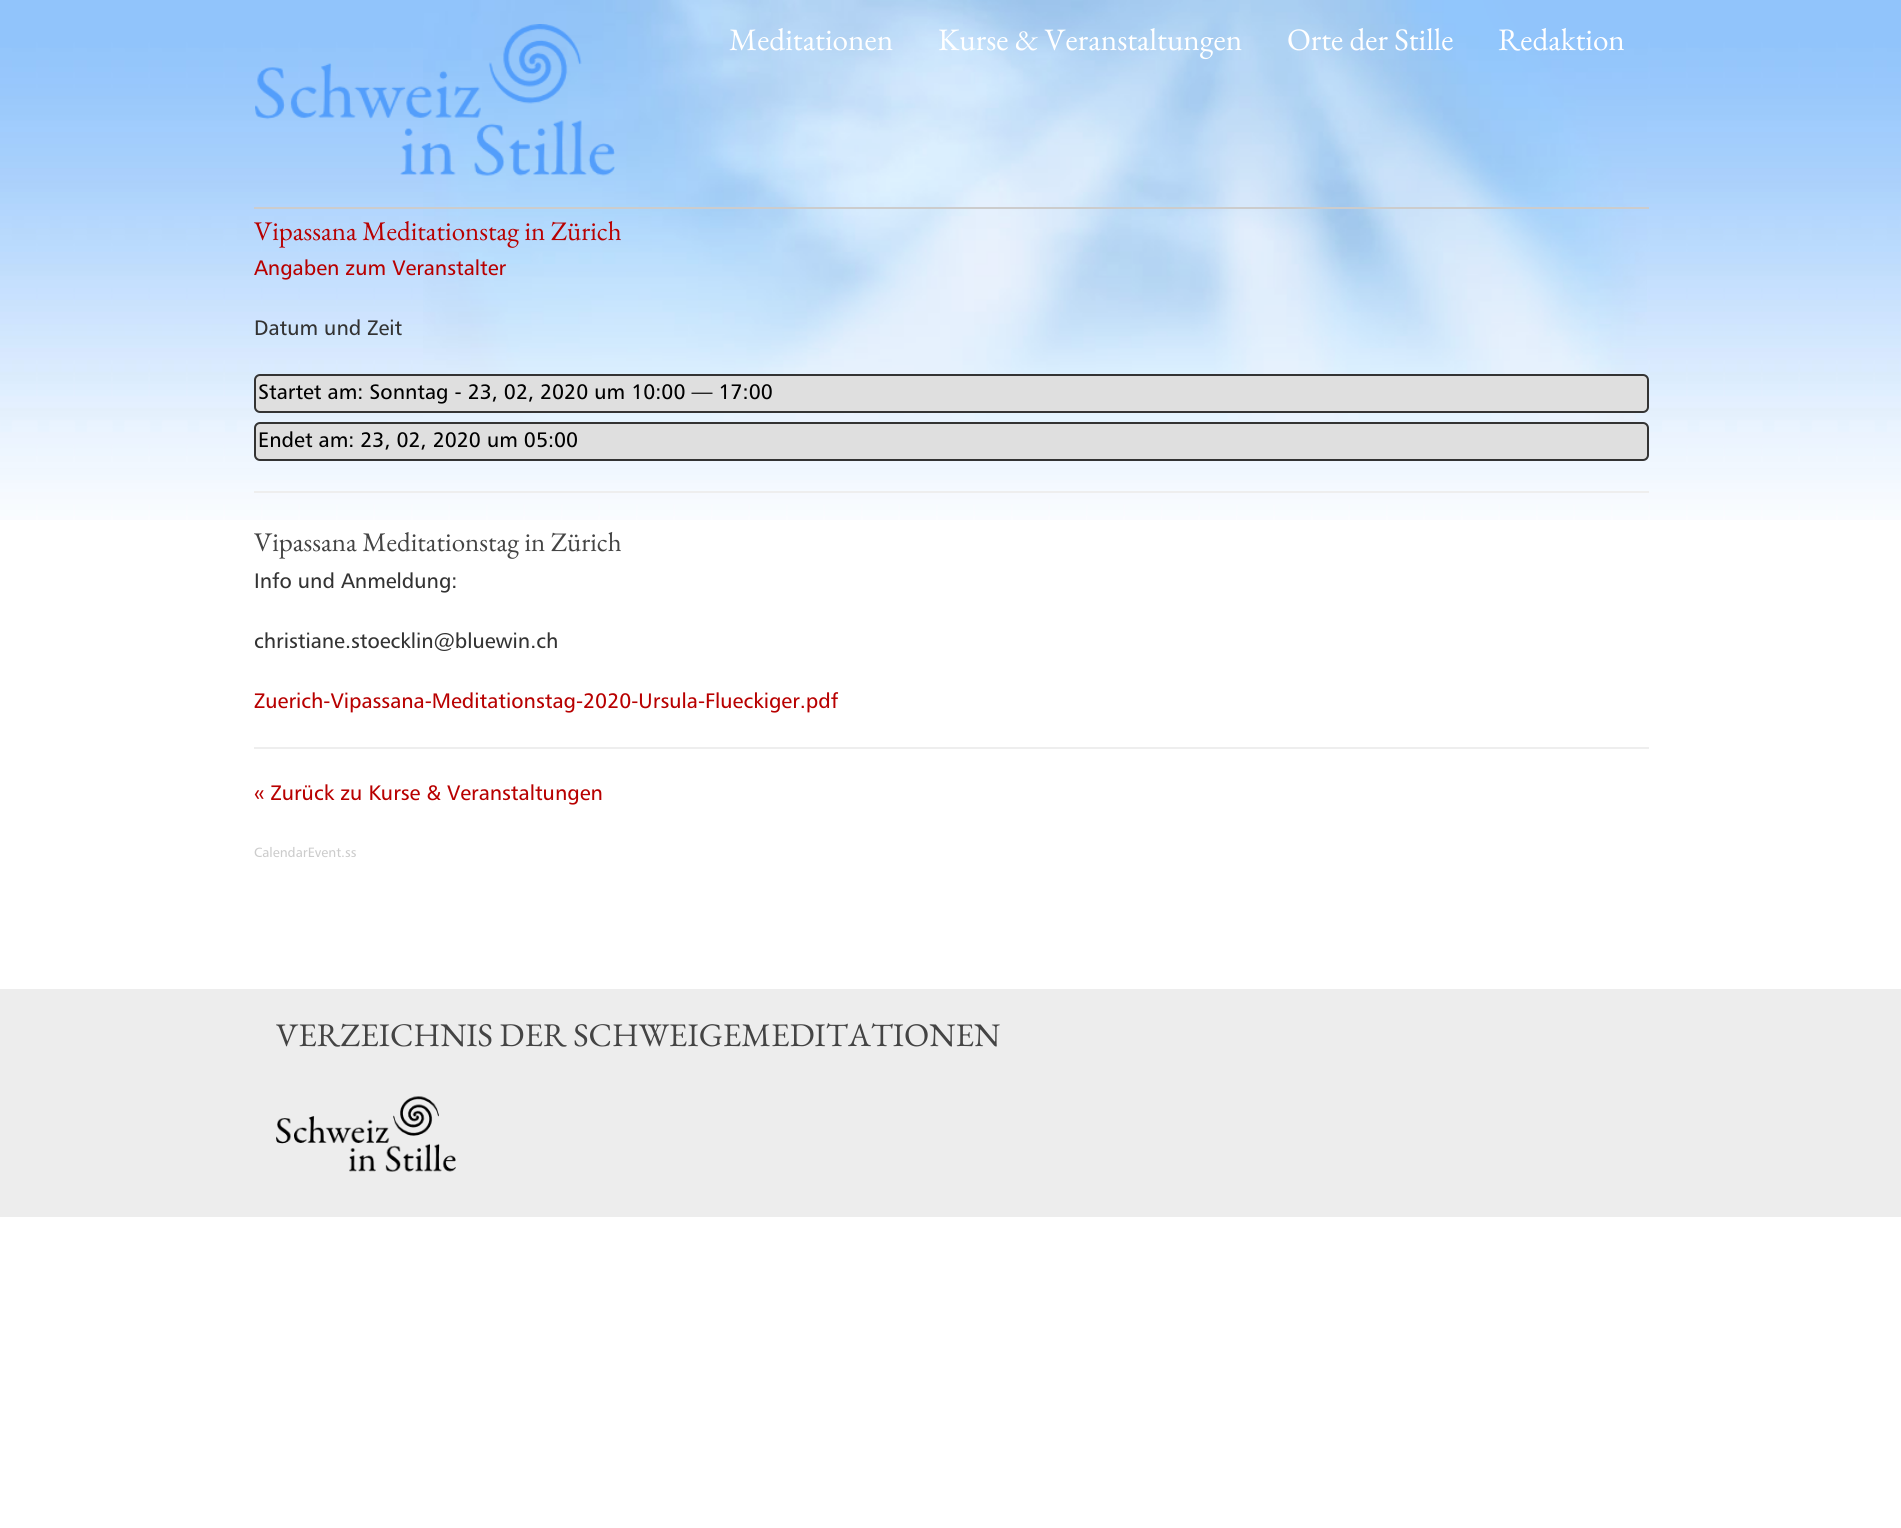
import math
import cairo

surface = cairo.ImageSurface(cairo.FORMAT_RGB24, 1901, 1528)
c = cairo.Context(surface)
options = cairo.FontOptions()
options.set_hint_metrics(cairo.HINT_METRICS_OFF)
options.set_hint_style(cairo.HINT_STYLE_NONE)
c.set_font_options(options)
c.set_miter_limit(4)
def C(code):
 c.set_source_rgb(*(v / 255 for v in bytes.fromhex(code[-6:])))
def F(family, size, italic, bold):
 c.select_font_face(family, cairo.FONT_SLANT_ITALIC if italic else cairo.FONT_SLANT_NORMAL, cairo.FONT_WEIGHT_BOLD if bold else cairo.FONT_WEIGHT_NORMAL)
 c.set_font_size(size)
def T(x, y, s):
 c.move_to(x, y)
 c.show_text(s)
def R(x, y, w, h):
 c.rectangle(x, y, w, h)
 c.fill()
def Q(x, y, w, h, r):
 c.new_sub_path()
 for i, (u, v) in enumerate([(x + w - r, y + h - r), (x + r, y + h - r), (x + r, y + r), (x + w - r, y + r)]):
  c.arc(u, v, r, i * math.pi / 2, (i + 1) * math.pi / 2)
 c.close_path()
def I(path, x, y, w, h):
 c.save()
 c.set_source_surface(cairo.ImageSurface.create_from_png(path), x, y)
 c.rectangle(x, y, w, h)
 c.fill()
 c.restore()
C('ffffff')
c.paint()
I('1.png',0,0,1901,520)
I('2.png',423,0,1224,424)
I('3.png',255,24,360,152)
F('EB Garamond',31.25,0,0)
C('ffffff')
T(729,50,'Meditationen')
T(938,50,'Kurse & Veranstaltungen')
T(1287,50,'Orte der Stille')
T(1498,50,'Redaktion')
C('cccccc')
R(254,207,1395,2)
F('EB Garamond',27,0,0)
C('b80000')
T(254,240,'Vipassana Meditationstag in Zürich')
F('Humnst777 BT',21,0,0)
T(254,275,'Angaben zum Veranstalter')
C('333333')
T(254,335,'Datum und Zeit')
C('dfdfdf')
Q(255,375,1393,37,5)
c.fill_preserve()
C('333333')
c.stroke()
C('000000')
T(258,399,'Startet am: Sonntag - 23, 02, 2020 um 10:00 — 17:00')
C('dfdfdf')
Q(255,423,1393,37,5)
c.fill_preserve()
C('333333')
c.stroke()
C('000000')
T(258,447,'Endet am: 23, 02, 2020 um 05:00')
C('eeeeee')
R(254,491,1395,2)
F('EB Garamond',27,0,0)
C('444444')
T(254,551,'Vipassana Meditationstag in Zürich')
F('Humnst777 BT',21,0,0)
C('333333')
T(254,588,'Info und Anmeldung:')
T(254,648,'christiane.stoecklin@bluewin.ch')
C('b80000')
T(254,708,'Zuerich-Vipassana-Meditationstag-2020-Ursula-Flueckiger.pdf')
C('eeeeee')
R(254,747,1395,2)
C('b80000')
T(254,800,'« Zurück zu Kurse & Veranstaltungen')
F('Humnst777 BT',13.5,0,0)
C('cccccc')
T(254,857,'CalendarEvent.ss')
C('ededed')
R(0,989,1901,228)
F('EB Garamond',33,0,0)
C('444444')
T(276,1046,'VERZEICHNIS DER SCHWEIGEMEDITATIONEN')
I('4.png',276,1096,180,76)
surface.write_to_png('o.png')
